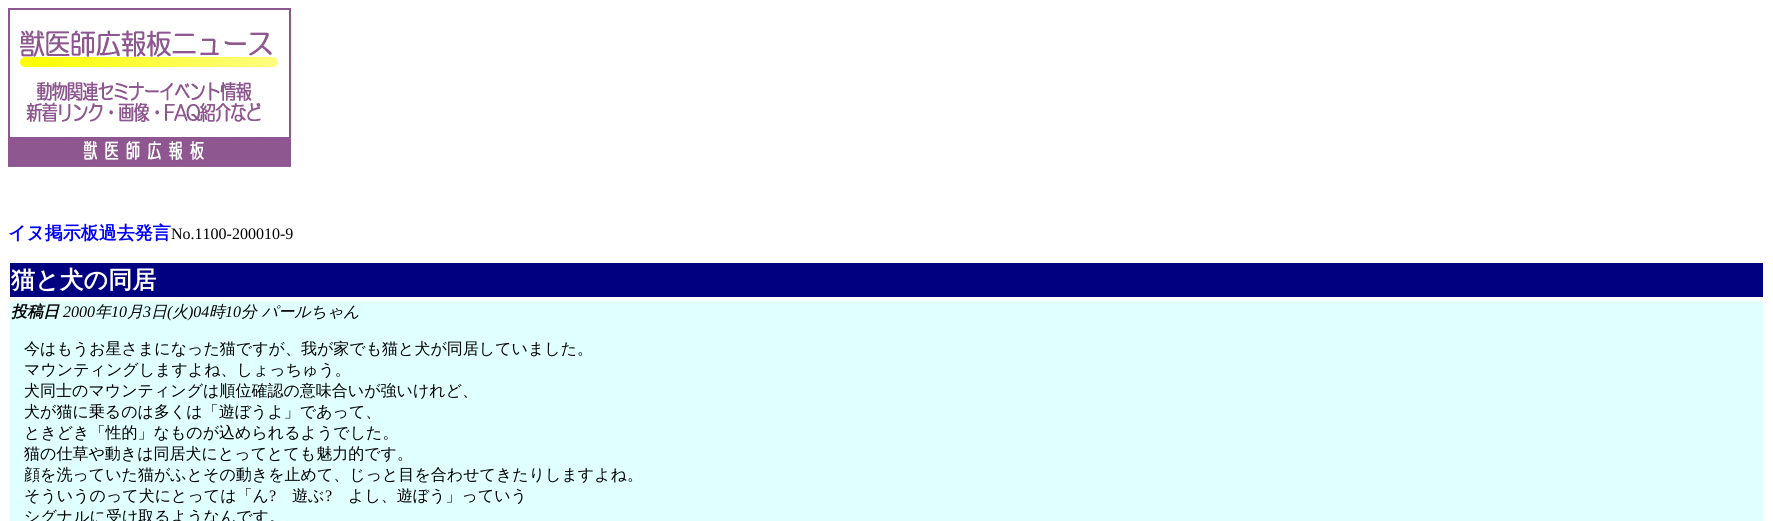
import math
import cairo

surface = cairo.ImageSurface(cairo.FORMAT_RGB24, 1773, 521)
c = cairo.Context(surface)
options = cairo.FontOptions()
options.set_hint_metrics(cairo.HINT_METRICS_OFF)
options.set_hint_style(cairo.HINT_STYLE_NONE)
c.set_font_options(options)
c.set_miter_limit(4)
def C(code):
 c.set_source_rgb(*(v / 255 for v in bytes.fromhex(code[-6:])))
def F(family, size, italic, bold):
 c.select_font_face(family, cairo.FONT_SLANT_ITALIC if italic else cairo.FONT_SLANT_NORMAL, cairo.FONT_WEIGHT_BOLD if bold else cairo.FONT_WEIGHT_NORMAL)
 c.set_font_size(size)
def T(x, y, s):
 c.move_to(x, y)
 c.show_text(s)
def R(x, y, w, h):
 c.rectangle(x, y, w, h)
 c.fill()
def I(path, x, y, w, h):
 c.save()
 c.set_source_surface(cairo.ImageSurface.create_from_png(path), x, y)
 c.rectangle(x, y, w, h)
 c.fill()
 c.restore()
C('ffffff')
c.paint()
I('1.png',8,8,283,159)
F('WenQuanYi Zen Hei',18,0,1)
C('0000ff')
T(8,239,'イヌ掲示板過去発言')
F('Liberation Serif',16,0,0)
C('000000')
T(171,239,'No.1100-200010-9')
C('000080')
R(10,263,1753,34)
F('WenQuanYi Zen Hei',24,0,1)
C('ffffff')
T(11,288,'猫と犬の同居')
C('e0ffff')
R(10,301,1753,220)
F('WenQuanYi Zen Hei',16,1,1)
C('000000')
T(11,317,'投稿日')
F('Liberation Serif',16,1,0)
T(63,317,'2000')
F('WenQuanYi Zen Hei Medium',16,1,0)
T(95,317,'年')
F('Liberation Serif',16,1,0)
T(111,317,'10')
F('WenQuanYi Zen Hei Medium',16,1,0)
T(127,317,'月')
F('Liberation Serif',16,1,0)
T(143,317,'3')
F('WenQuanYi Zen Hei Medium',16,1,0)
T(151,317,'日')
F('Liberation Serif',16,1,0)
T(167,317,'(')
F('WenQuanYi Zen Hei Medium',16,1,0)
T(172,317,'火')
F('Liberation Serif',16,1,0)
T(188,317,')04')
F('WenQuanYi Zen Hei Medium',16,1,0)
T(209,317,'時')
F('Liberation Serif',16,1,0)
T(225,317,'10')
F('WenQuanYi Zen Hei Medium',16,1,0)
T(241,317,'分 パールちゃん')
F('WenQuanYi Zen Hei Medium',16,0,0)
T(24,354,'今はもうお星さまになった猫ですが、我が家でも猫と犬が同居していました。')
T(24,375,'マウンティングしますよね、しょっちゅう。')
T(24,396,'犬同士のマウンティングは順位確認の意味合いが強いけれど、')
T(24,417,'犬が猫に乗るのは多くは「遊ぼうよ」であって、')
T(24,438,'ときどき「性的」なものが込められるようでした。')
T(24,459,'猫の仕草や動きは同居犬にとってとても魅力的です。')
T(24,480,'顔を洗っていた猫がふとその動きを止めて、じっと目を合わせてきたりしますよね。')
T(24,501,'そういうのって犬にとっては「ん')
F('Liberation Serif',16,0,0)
T(269,501,'?')
F('WenQuanYi Zen Hei Medium',16,0,0)
T(292,501,'遊ぶ')
F('Liberation Serif',16,0,0)
T(325,501,'?')
F('WenQuanYi Zen Hei Medium',16,0,0)
T(348,501,'よし、遊ぼう」っていう')
T(24,522,'シグナルに受け取るようなんです。')
surface.write_to_png('o.png')
